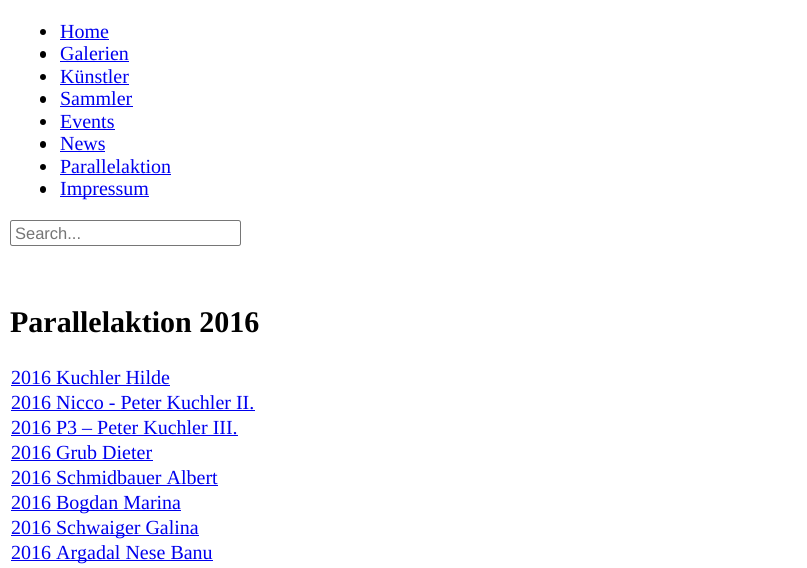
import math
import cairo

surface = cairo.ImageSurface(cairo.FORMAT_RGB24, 807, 568)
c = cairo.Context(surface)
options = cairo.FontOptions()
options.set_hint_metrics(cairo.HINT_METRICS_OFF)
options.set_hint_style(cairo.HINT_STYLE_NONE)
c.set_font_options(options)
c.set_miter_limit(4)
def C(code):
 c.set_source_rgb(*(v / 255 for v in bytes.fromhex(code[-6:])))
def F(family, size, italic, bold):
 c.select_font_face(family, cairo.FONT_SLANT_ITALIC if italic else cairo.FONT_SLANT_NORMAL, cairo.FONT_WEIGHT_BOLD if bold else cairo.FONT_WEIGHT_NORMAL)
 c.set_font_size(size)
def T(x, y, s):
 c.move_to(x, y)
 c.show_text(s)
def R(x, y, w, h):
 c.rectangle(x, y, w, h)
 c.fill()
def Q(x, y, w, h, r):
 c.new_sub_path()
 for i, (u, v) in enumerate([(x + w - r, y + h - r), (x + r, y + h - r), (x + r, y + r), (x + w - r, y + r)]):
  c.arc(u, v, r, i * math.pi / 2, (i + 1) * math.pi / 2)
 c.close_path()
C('ffffff')
c.paint()
C('000000')
c.arc(43,32,3,0,2 * math.pi)
c.fill()
F('Liberation Serif',20,0,0)
C('0000ee')
T(60,38,'Home')
R(60,39,49,1)
C('000000')
Q(40,51,6,7,3)
c.fill()
C('0000ee')
T(60,60,'Galerien')
R(60,61,69,1)
C('000000')
c.new_path()
c.arc(43,77,3,0,2 * math.pi)
c.fill()
C('0000ee')
T(60,83,'Künstler')
R(60,84,69,1)
C('000000')
Q(40,96,6,7,3)
c.fill()
C('0000ee')
T(60,105,'Sammler')
R(60,106,73,1)
C('000000')
c.new_path()
c.arc(43,122,3,0,2 * math.pi)
c.fill()
C('0000ee')
T(60,128,'Events')
R(60,129,55,1)
C('000000')
Q(40,141,6,7,3)
c.fill()
C('0000ee')
T(60,150,'News')
R(60,151,45,1)
C('000000')
c.new_path()
c.arc(43,167,3,0,2 * math.pi)
c.fill()
C('0000ee')
T(60,173,'Parallelaktion')
R(60,174,111,1)
C('000000')
Q(40,186,6,7,3)
c.fill()
C('0000ee')
R(60,196,89,1)
T(60,195,'Impressum')
Q(10.5,220.5,230,25,2)
C('767676')
c.set_line_width(1)
c.stroke()
F('Liberation Sans',16.5,0,0)
C('757575')
T(15,239,'Search...')
F('Liberation Serif',30,0,1)
C('000000')
T(10,332,'Parallelaktion 2016')
F('Liberation Serif',20,0,0)
C('0000ee')
T(11,384,'2016 Kuchler Hilde')
R(11,385,159,1)
T(11,409,'2016 Nicco - Peter Kuchler II.')
R(11,410,244,1)
T(11,434,'2016 P3 – Peter Kuchler III.')
R(11,435,227,1)
T(11,459,'2016 Grub Dieter')
R(11,460,142,1)
T(11,484,'2016 Schmidbauer Albert')
R(11,485,207,1)
R(11,510,170,1)
T(11,509,'2016 Bogdan Marina')
R(11,535,188,1)
T(11,534,'2016 Schwaiger Galina')
R(11,560,202,1)
T(11,559,'2016 Argadal Nese Banu')
surface.write_to_png('o.png')
